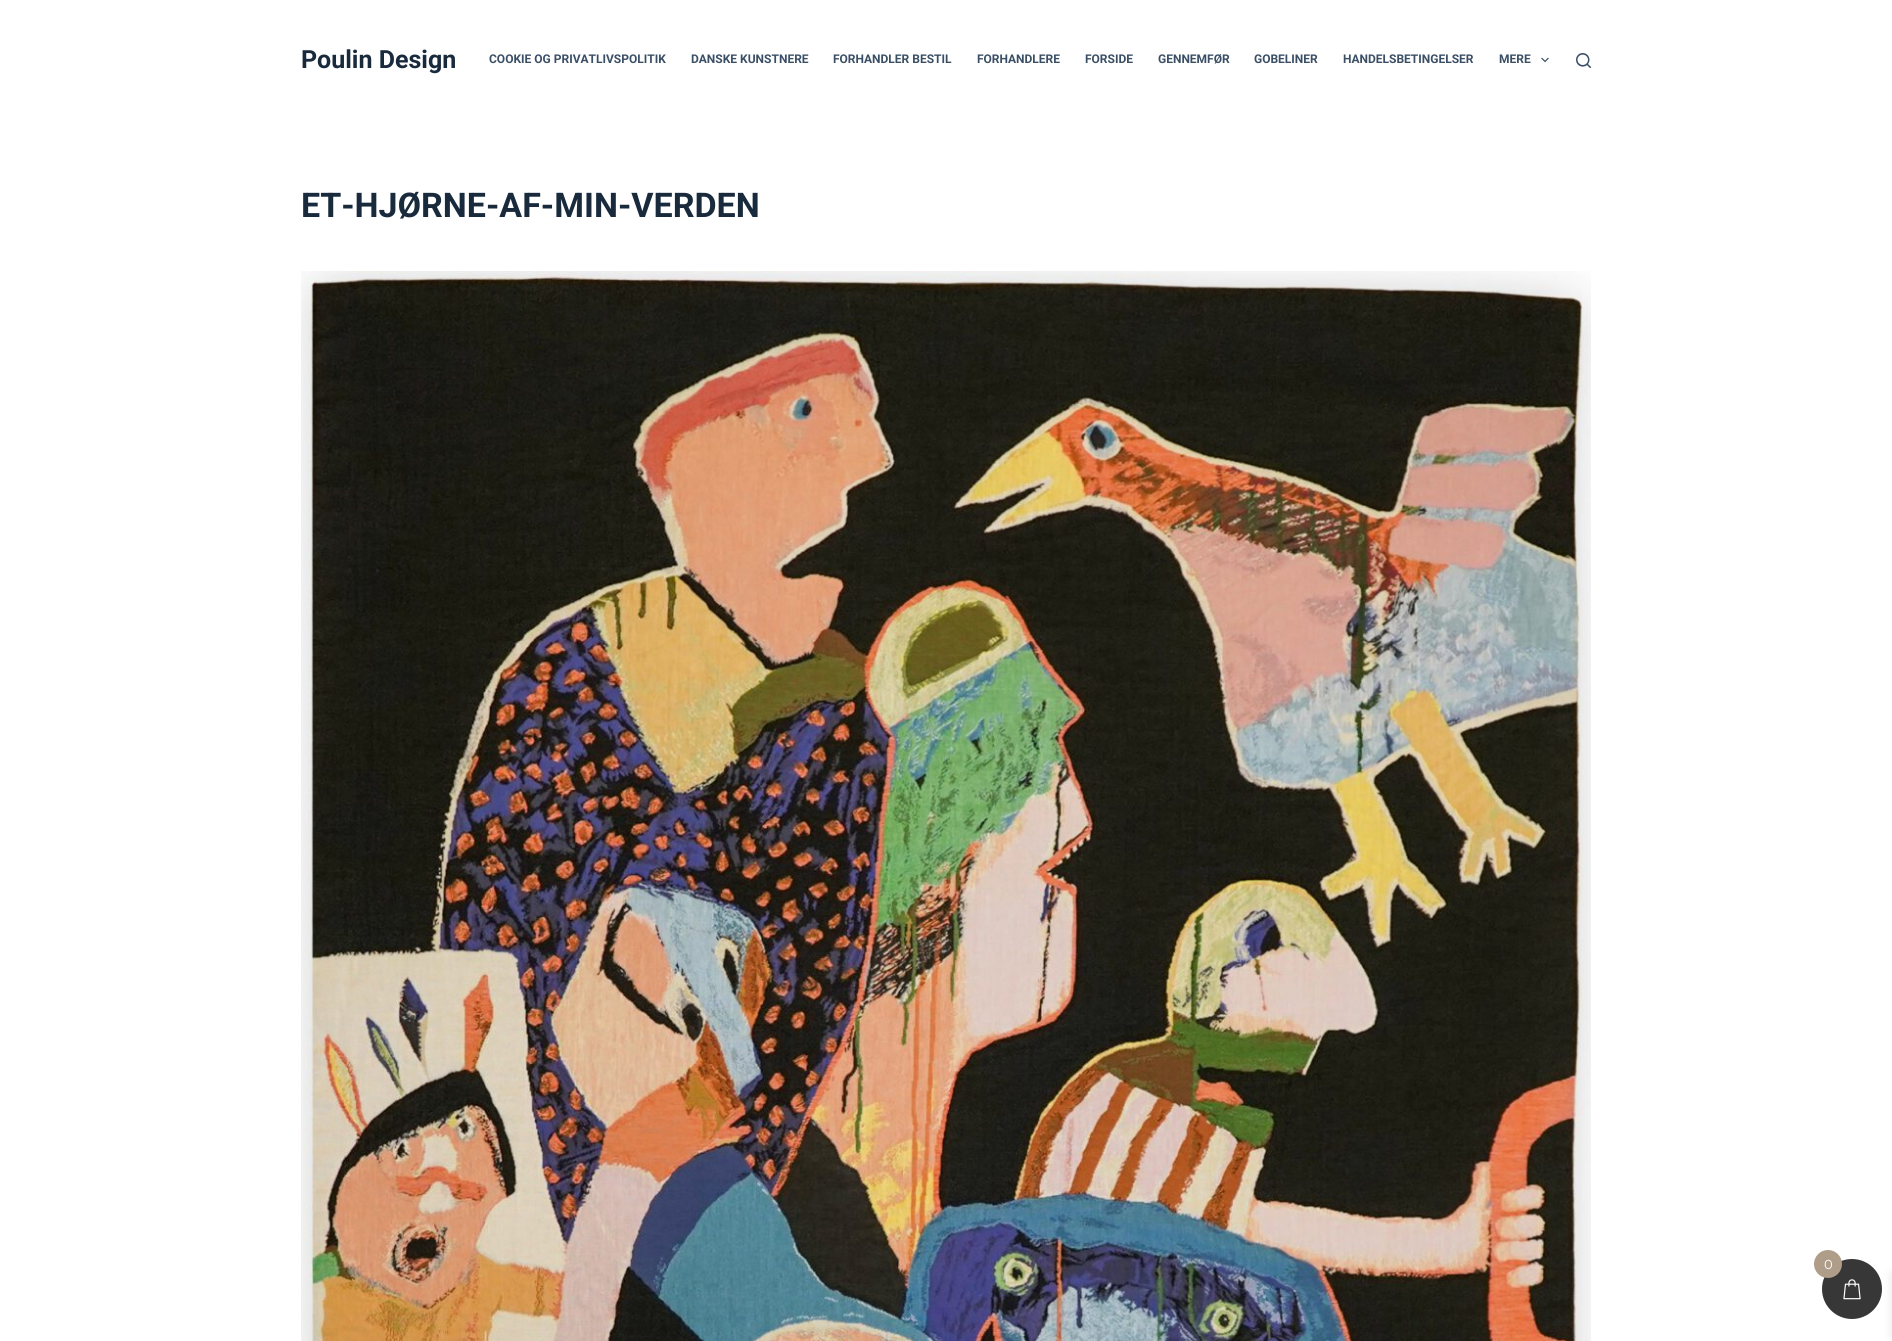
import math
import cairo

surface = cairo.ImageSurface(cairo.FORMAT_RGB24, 1892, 1341)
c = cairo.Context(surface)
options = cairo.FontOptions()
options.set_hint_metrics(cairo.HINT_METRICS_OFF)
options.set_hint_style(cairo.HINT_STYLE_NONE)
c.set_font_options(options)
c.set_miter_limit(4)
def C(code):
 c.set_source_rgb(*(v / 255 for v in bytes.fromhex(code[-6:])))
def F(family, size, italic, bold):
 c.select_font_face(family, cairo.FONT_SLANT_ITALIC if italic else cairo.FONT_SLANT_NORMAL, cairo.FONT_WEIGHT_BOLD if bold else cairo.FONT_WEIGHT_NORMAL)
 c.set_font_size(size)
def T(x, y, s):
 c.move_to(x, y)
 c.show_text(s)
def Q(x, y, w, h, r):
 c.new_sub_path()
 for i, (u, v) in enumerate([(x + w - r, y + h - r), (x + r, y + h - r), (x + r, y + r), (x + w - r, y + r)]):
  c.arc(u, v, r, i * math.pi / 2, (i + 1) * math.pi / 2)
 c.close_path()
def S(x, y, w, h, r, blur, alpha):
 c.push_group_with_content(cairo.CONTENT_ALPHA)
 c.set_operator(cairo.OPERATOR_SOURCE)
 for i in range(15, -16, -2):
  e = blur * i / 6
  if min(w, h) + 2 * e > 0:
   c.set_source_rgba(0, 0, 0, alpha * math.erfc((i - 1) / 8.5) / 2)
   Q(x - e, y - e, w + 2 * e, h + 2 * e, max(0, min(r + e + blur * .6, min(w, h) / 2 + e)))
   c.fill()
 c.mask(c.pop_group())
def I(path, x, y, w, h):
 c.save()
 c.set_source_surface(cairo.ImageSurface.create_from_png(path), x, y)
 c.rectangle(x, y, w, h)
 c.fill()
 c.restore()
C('ffffff')
c.paint()
F('Roboto',25,0,1)
C('192a3d')
T(301,68,'Poulin Design')
F('Roboto',12,0,1)
C('3a4f66')
T(489,63,'COOKIE OG PRIVATLIVSPOLITIK')
T(691,63,'DANSKE KUNSTNERE')
T(833,63,'FORHANDLER BESTIL')
T(977,63,'FORHANDLERE')
T(1085,63,'FORSIDE')
T(1158,63,'GENNEMFØR')
T(1254,63,'GOBELINER')
T(1343,63,'HANDELSBETINGELSER')
T(1499,63,'MERE')
I('1.png',1541,57,8,6)
I('2.png',1576,53,15,15)
F('Roboto',34,0,1)
C('192a3d')
T(301,217,'ET-HJØRNE-AF-MIN-VERDEN')
I('3.png',301,271,1290,1070)
C('000000')
S(1892,1273,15,63,0,5,.1)
C('373737')
c.arc(1852,1289,30,0,2 * math.pi)
c.fill()
C('af9c89')
c.arc(1828,1264,14,0,2 * math.pi)
c.fill()
F('Montserrat',13,0,0)
C('ffffff')
T(1824,1269,'0')
I('4.png',1843,1279,18,21)
surface.write_to_png('o.png')
